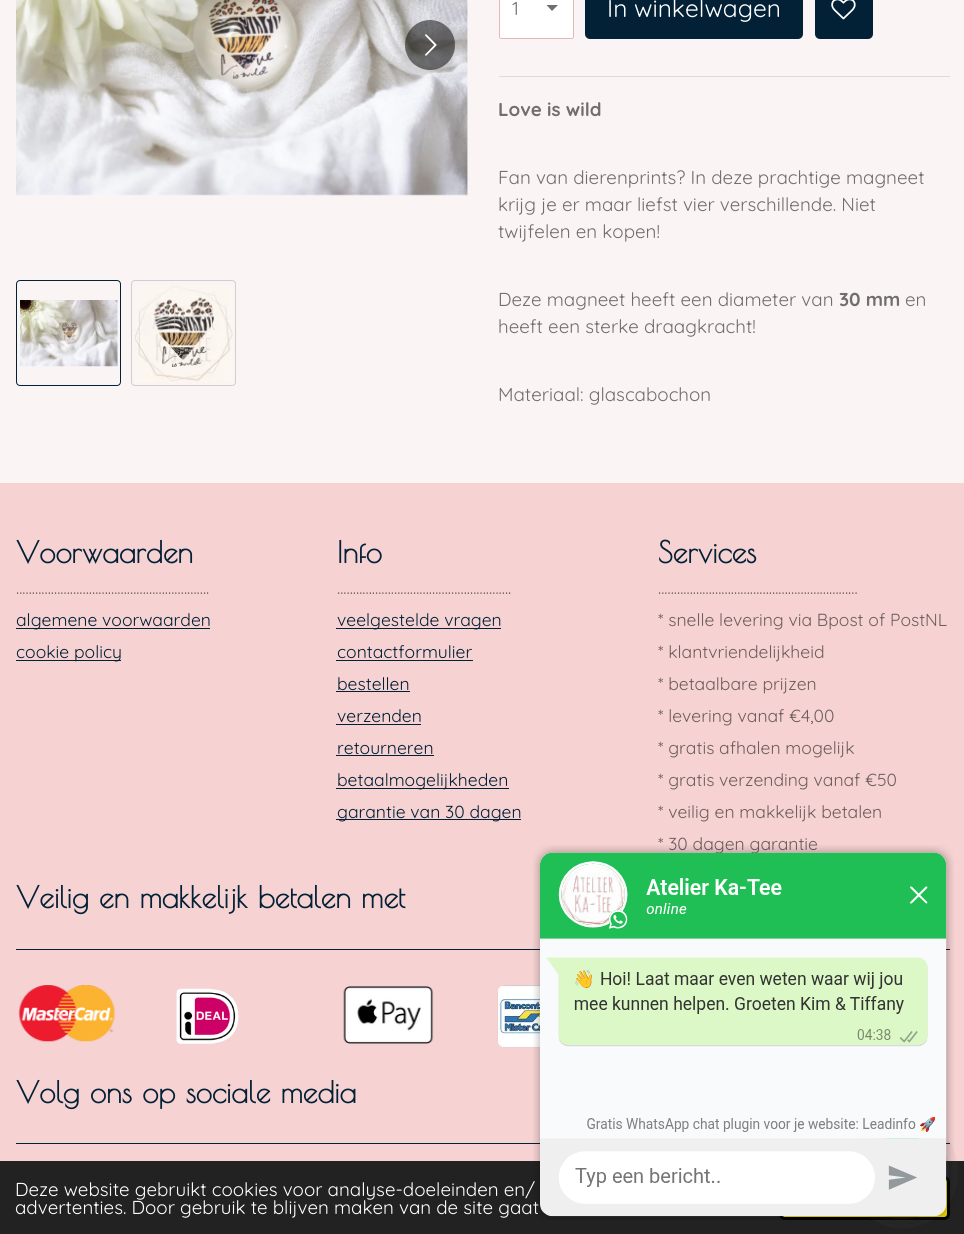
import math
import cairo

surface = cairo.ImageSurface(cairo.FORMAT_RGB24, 964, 1234)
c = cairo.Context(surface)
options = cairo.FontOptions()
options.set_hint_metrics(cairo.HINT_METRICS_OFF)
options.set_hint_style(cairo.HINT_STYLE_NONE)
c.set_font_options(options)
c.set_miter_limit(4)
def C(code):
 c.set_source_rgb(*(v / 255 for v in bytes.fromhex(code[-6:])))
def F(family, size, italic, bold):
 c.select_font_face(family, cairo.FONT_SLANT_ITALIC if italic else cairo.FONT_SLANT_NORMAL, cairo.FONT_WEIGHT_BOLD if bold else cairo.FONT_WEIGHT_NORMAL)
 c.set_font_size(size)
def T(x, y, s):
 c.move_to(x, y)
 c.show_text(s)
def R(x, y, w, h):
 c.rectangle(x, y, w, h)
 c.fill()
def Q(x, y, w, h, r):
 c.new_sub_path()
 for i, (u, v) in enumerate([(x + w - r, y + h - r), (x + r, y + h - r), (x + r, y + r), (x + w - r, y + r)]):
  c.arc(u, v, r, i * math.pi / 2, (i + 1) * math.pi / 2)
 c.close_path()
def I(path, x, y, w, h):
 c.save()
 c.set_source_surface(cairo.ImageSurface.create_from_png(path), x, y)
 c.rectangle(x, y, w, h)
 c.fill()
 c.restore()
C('fbf4f4')
c.paint()
I('1.png',16,0,452,196)
c.set_source_rgba(0,0,0,0.5)
c.arc(430,45,25,0,2 * math.pi)
c.fill()
I('2.png',425,34,12,22)
Q(16.5,280.5,104,105,3.5)
C('022136')
c.set_line_width(1)
c.stroke()
I('3.png',20,300,98,67)
Q(131.5,280.5,104,105,3.5)
C('d2cccc')
c.stroke()
I('4.png',135,285,98,98)
C('ffffff')
Q(499,-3,75,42,2.5)
c.fill()
C('716e6e')
c.new_path()
c.move_to(552,11)
c.line_to(546.5,5)
c.line_to(558,5)
c.close_path()
c.fill()
Q(499.5,-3.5,74,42,2)
c.set_source_rgba(0.796,0.443,0.443,0.5)
c.stroke()
F('Quicksand Light',18.75,0,0)
C('716e6e')
T(512,15,'1')
C('022136')
Q(585,-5,218,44,5)
c.fill()
F('Quicksand Light',24.5,0,0)
C('ffffff')
T(607,17,'In winkelwagen')
C('022136')
Q(815,-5,58,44,5)
c.fill()
I('5.png',831,0,25,20)
C('dfd9d9')
R(499,76,451,1)
F('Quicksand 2 Light',18.75,0,0)
C('716e6e')
T(498,116,'Love is wild')
F('Quicksand Light',18.75,0,0)
T(498,184,'Fan van dierenprints? In deze prachtige magneet')
T(498,211,'krijg je er maar liefst vier verschillende. Niet')
T(498,238,'twijfelen en kopen!')
T(498,306,'Deze magneet heeft een diameter van')
F('Quicksand 2 Light',18.75,0,0)
T(839,306,'30 mm')
F('Quicksand Light',18.75,0,0)
T(905,306,'en')
T(498,333,'heeft een sterke draagkracht!')
T(498,401,'Materiaal: glascabochon')
C('f6d2d2')
R(0,483,964,678)
F('Poiret One',29.6,0,1)
C('022136')
T(16,563,'Voorwaarden')
F('Quicksand Light',17.5,0,0)
C('6f5e5e')
T(16,594,'.............................................................')
C('022136')
R(16,628,194,1)
T(16,626,'algemene voorwaarden')
R(16,660,105,1)
T(16,658,'cookie policy')
F('Poiret One',29.6,0,1)
T(337,563,'Info')
F('Quicksand Light',17.5,0,0)
C('6f5e5e')
T(337,594,'.......................................................')
C('022136')
R(336,628,165,1)
T(337,626,'veelgestelde vragen')
T(337,658,'contactformulier')
R(336,660,137,1)
T(337,690,'bestellen')
R(336,691,74,1)
T(337,722,'verzenden')
R(336,724,85,1)
T(337,754,'retourneren')
R(336,755,98,1)
R(336,788,173,1)
T(337,786,'betaalmogelijkheden')
R(336,819,185,1)
T(337,818,'garantie van 30 dagen')
F('Poiret One',29.6,0,1)
T(658,563,'Services')
F('Quicksand Light',17.5,0,0)
C('6f5e5e')
T(658,594,'...............................................................')
T(658,626,'* snelle levering via Bpost of PostNL')
T(658,658,'* klantvriendelijkheid')
T(658,690,'* betaalbare prijzen')
T(658,722,'* levering vanaf €4,00')
T(658,754,'* gratis afhalen mogelijk')
T(658,786,'* gratis verzending vanaf €50')
T(658,818,'* veilig en makkelijk betalen')
T(658,850,'* 30 dagen garantie')
F('Poiret One',29.6,0,1)
C('022136')
T(16,908,'Veilig en makkelijk betalen met')
R(16,949,934,1)
I('6.png',18,985,98,57)
I('7.png',176,988,63,56)
I('8.png',343,986,91,58)
I('9.png',497,985,43,63)
T(16,1103,'Volg ons op sociale media')
R(16,1143,934,1)
C('222222')
R(0,1161,964,73)
F('Quicksand Light',18.75,0,0)
C('ffffff')
T(15,1196,'Deze website gebruikt cookies voor analyse-doeleinden en/')
T(15,1214,'advertenties. Door gebruik te blijven maken van de site gaat')
C('f1d600')
Q(780.5,1177.5,168,41,4.5)
c.fill_preserve()
C('000000')
c.set_line_width(3)
c.stroke()
I('11.png',858,1138,100,90)
I('10.png',533,845,421,375)
surface.write_to_png('o.png')
